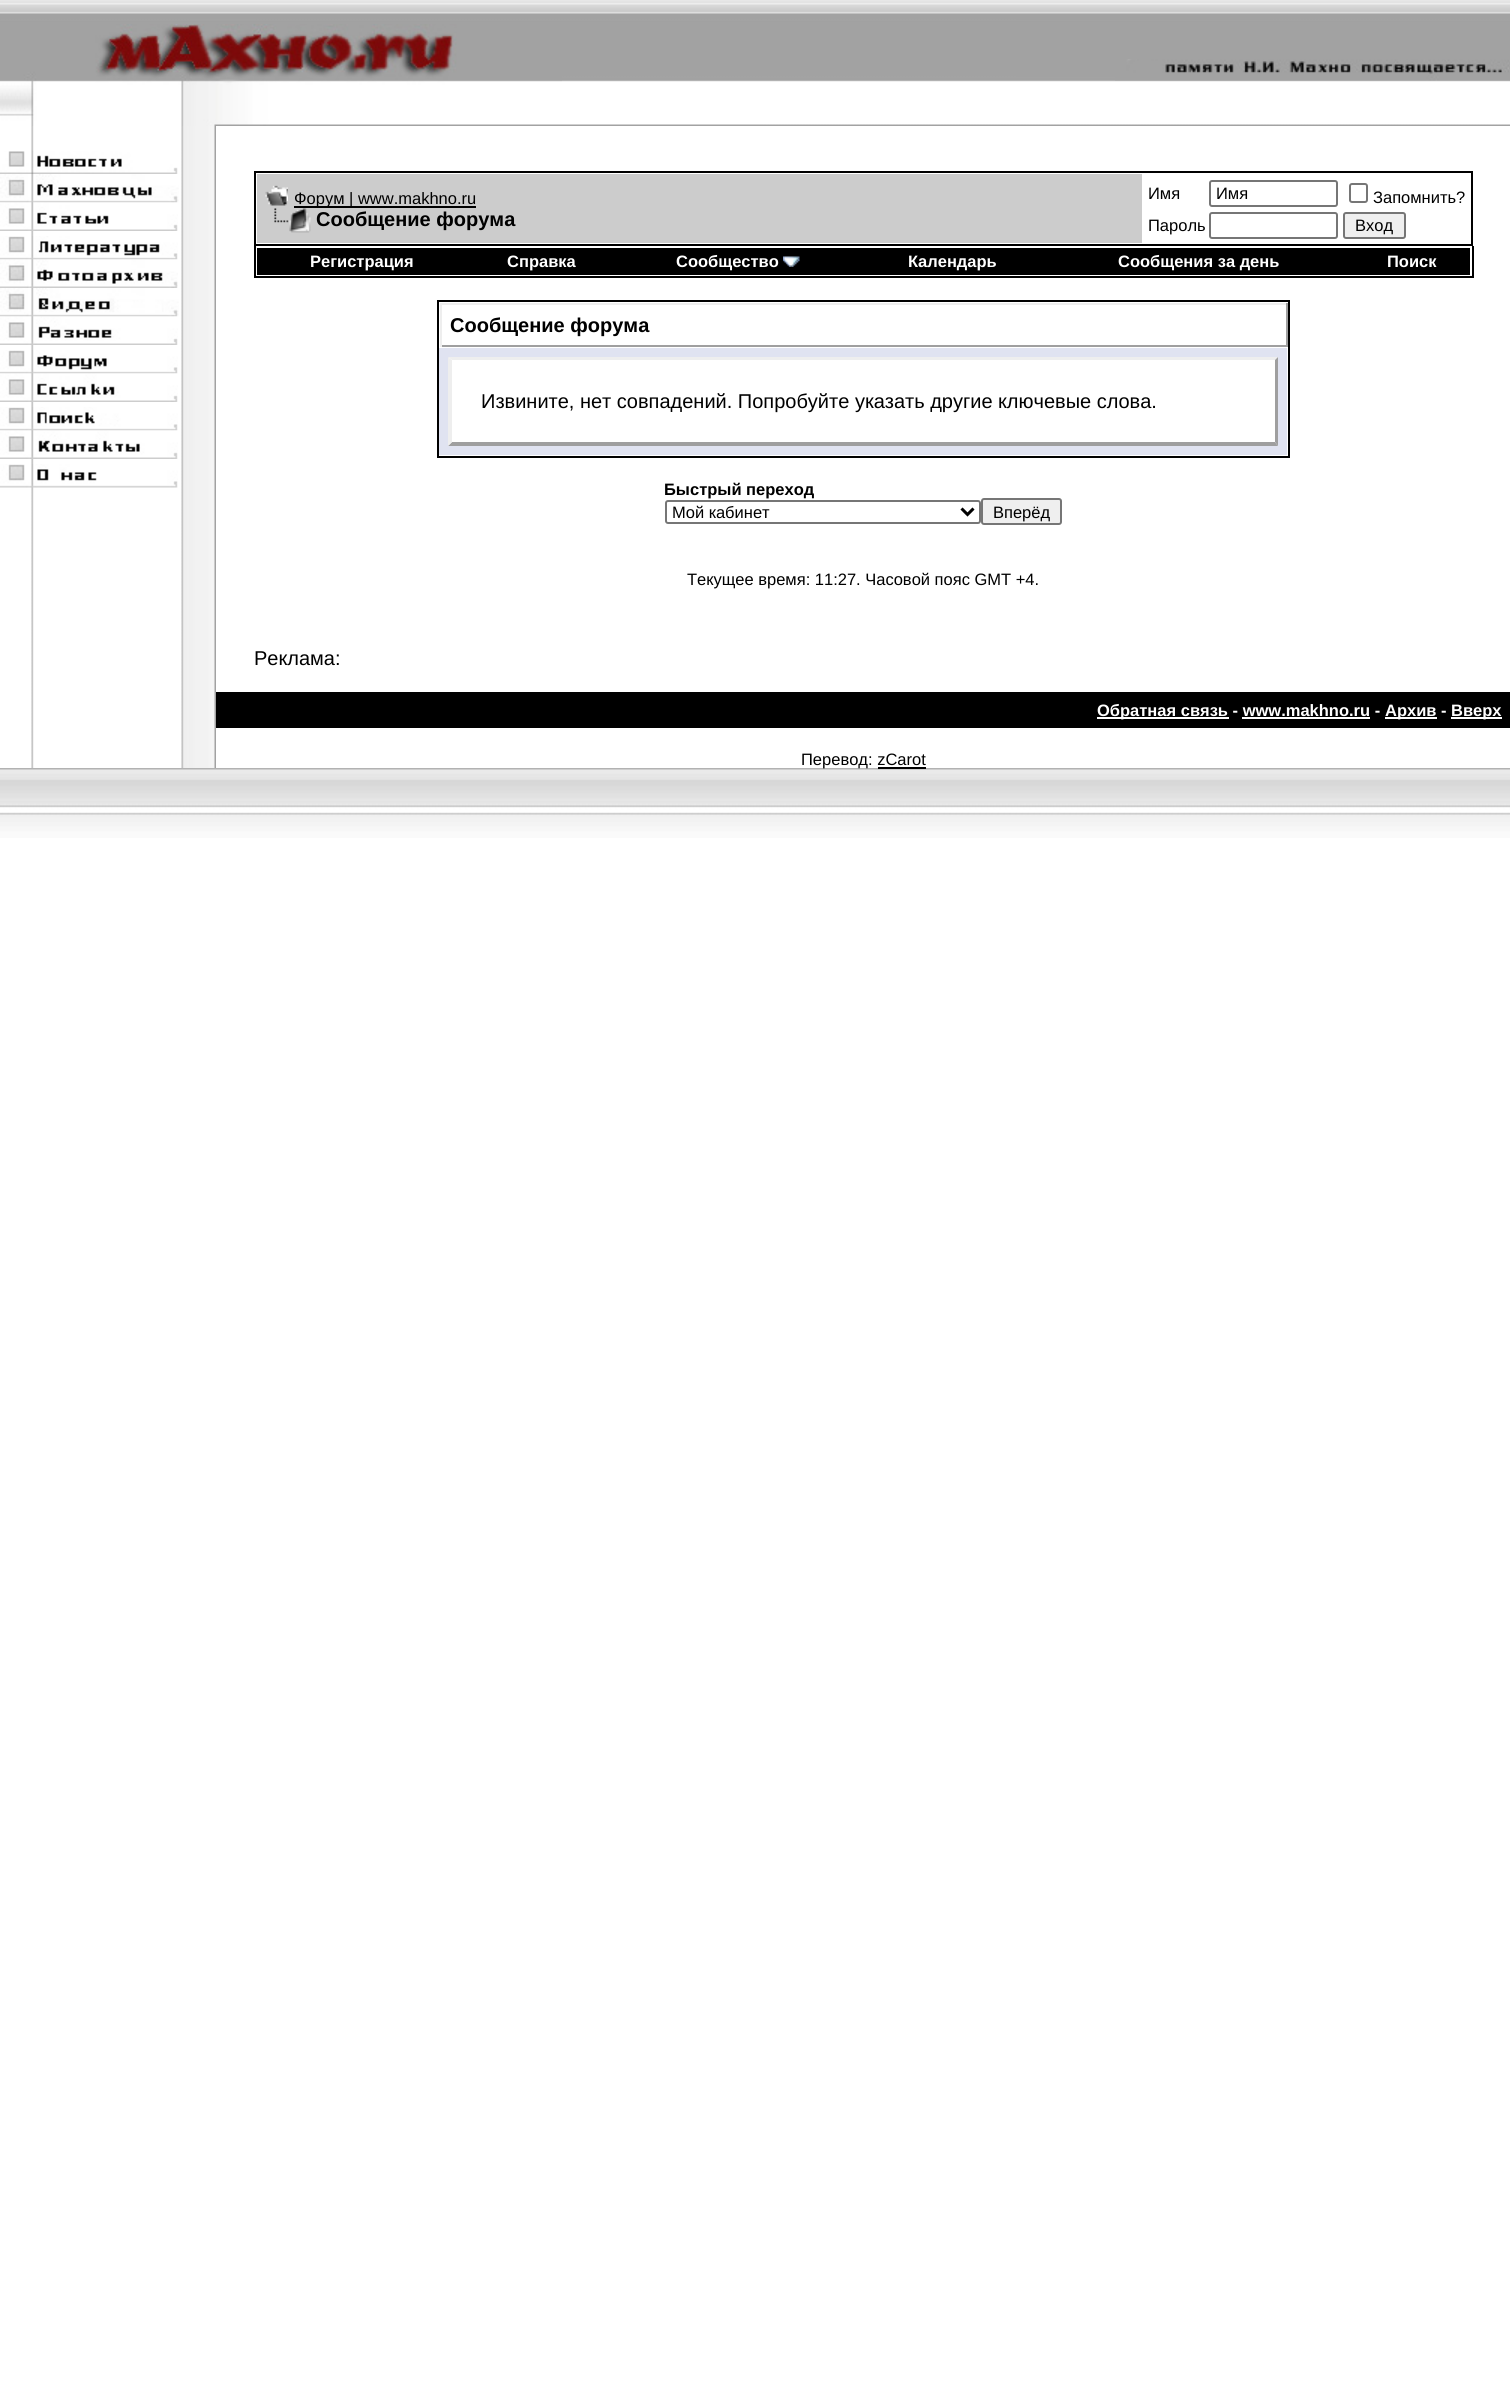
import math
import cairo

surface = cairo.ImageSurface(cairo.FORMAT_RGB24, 1510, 2386)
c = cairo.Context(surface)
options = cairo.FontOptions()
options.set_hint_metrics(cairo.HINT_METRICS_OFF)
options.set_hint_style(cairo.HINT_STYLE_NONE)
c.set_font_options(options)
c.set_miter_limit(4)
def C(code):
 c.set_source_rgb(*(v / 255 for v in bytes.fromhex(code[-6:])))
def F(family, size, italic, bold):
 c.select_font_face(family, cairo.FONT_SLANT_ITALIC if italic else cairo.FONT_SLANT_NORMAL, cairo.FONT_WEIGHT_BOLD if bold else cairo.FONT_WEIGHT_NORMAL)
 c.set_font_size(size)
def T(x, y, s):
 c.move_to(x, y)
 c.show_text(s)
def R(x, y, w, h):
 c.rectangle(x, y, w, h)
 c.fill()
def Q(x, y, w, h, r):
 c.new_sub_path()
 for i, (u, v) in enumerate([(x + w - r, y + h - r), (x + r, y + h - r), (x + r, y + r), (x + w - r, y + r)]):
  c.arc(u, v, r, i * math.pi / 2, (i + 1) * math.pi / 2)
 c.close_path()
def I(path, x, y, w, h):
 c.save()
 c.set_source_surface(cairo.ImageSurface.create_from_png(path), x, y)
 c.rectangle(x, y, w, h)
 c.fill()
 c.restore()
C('ffffff')
c.paint()
I('1.png',0,0,1510,126)
I('2.png',0,24,562,102)
I('3.png',1115,59,395,22)
I('4.png',31,126,185,642)
I('5.png',0,151,178,23)
I('6.png',0,174,179,29)
I('7.png',0,202,178,29)
I('8.png',0,236,178,24)
I('9.png',0,259,178,29)
I('10.png',0,288,179,29)
I('11.png',0,316,178,29)
I('12.png',0,350,178,24)
I('13.png',0,373,178,29)
I('14.png',0,407,178,24)
I('15.png',0,430,178,29)
I('16.png',0,464,178,24)
c.rectangle(255,172,1217,73)
C('000000')
c.stroke()
C('cccccc')
R(257,174,885,69)
I('17.png',265,185,23,21)
C('000000')
R(294,206,182,2)
F('Liberation Sans',16.5,0,0)
T(294,204,'Форум | www.makhno.ru')
I('18.png',274,208,37,25)
F('Liberation Sans',20,0,1)
T(316,226,'Сообщение форума')
F('Liberation Sans',16.5,0,0)
T(1148,199,'Имя')
Q(1210,181,127,25,2)
C('767676')
c.stroke()
C('000000')
T(1216,199,'Имя')
Q(1350,184,17,18,2)
C('767676')
c.stroke()
C('000000')
T(1373,203,'Запомнить?')
T(1148,231,'Пароль')
Q(1210,213,127,25,2)
C('767676')
c.stroke()
C('efefef')
Q(1344,213,61,25,2)
c.fill_preserve()
C('767676')
c.stroke()
C('000000')
T(1355,231,'Вход')
R(1472,246,2,32)
R(254,276,1219,2)
R(254,246,2,32)
R(257,248,1213,27)
F('Liberation Sans',16.5,0,1)
C('ffffff')
T(310,267,'Регистрация')
T(507,267,'Справка')
T(676,267,'Сообщество')
I('19.png',783,256,17,11)
T(908,267,'Календарь')
T(1118,267,'Сообщения за день')
T(1387,267,'Поиск')
c.rectangle(438,301,851,156)
C('000000')
c.stroke()
C('eeeeee')
R(440,303,847,2)
C('9f9f9f')
R(1286,303,2,44)
R(440,345,847,2)
C('eeeeee')
R(440,303,2,44)
F('Liberation Sans',20,0,1)
C('000000')
T(450,332,'Сообщение форума')
C('e0e3f1')
R(439,348,848,107)
C('ffffff')
R(449,357,829,89)
C('eeeeee')
c.new_path()
c.move_to(448,357)
c.line_to(1278,357)
c.line_to(1275,360)
c.line_to(452,360)
c.close_path()
c.fill()
C('9f9f9f')
c.new_path()
c.move_to(1278,357)
c.line_to(1278,446)
c.line_to(1275,442)
c.line_to(1275,360)
c.close_path()
c.fill()
c.new_path()
c.move_to(1278,446)
c.line_to(448,446)
c.line_to(452,442)
c.line_to(1275,442)
c.close_path()
c.fill()
C('eeeeee')
c.new_path()
c.move_to(448,446)
c.line_to(448,357)
c.line_to(452,360)
c.line_to(452,442)
c.close_path()
c.fill()
F('Liberation Sans',20,0,0)
C('000000')
T(481,408,'Извините, нет совпадений. Попробуйте указать другие ключевые слова.')
F('Liberation Sans',16.5,0,1)
T(664,495,'Быстрый переход')
Q(666,501,314,22,2)
C('767676')
c.stroke()
c.new_path()
c.move_to(961.5,508.5)
c.line_to(967.5,514.5)
c.line_to(973.5,508.5)
C('000000')
c.set_line_width(3)
c.stroke()
F('Liberation Sans',16.5,0,0)
T(672,518,'Мой кабинет')
C('efefef')
Q(982,499,79,25,2)
c.fill_preserve()
C('767676')
c.set_line_width(2)
c.stroke()
C('000000')
T(993,518,'Вперёд')
T(687,585,'Текущее время: 11:27. Часовой пояс GMT +4.')
F('Liberation Sans',20,0,0)
T(254,665,'Реклама:')
R(216,692,1294,36)
C('ffffff')
R(1097,717,132,2)
F('Liberation Sans',16.5,0,1)
T(1097,716,'Обратная связь - www.makhno.ru -')
R(1242,717,128,2)
R(1385,717,52,2)
T(1385,716,'Архив -')
R(1451,717,51,2)
T(1451,716,'Вверх')
I('20.png',0,768,1510,70)
F('Liberation Sans',16.5,0,0)
C('000000')
T(801,765,'Перевод: zCarot')
R(878,767,48,2)
surface.write_to_png('o.png')
